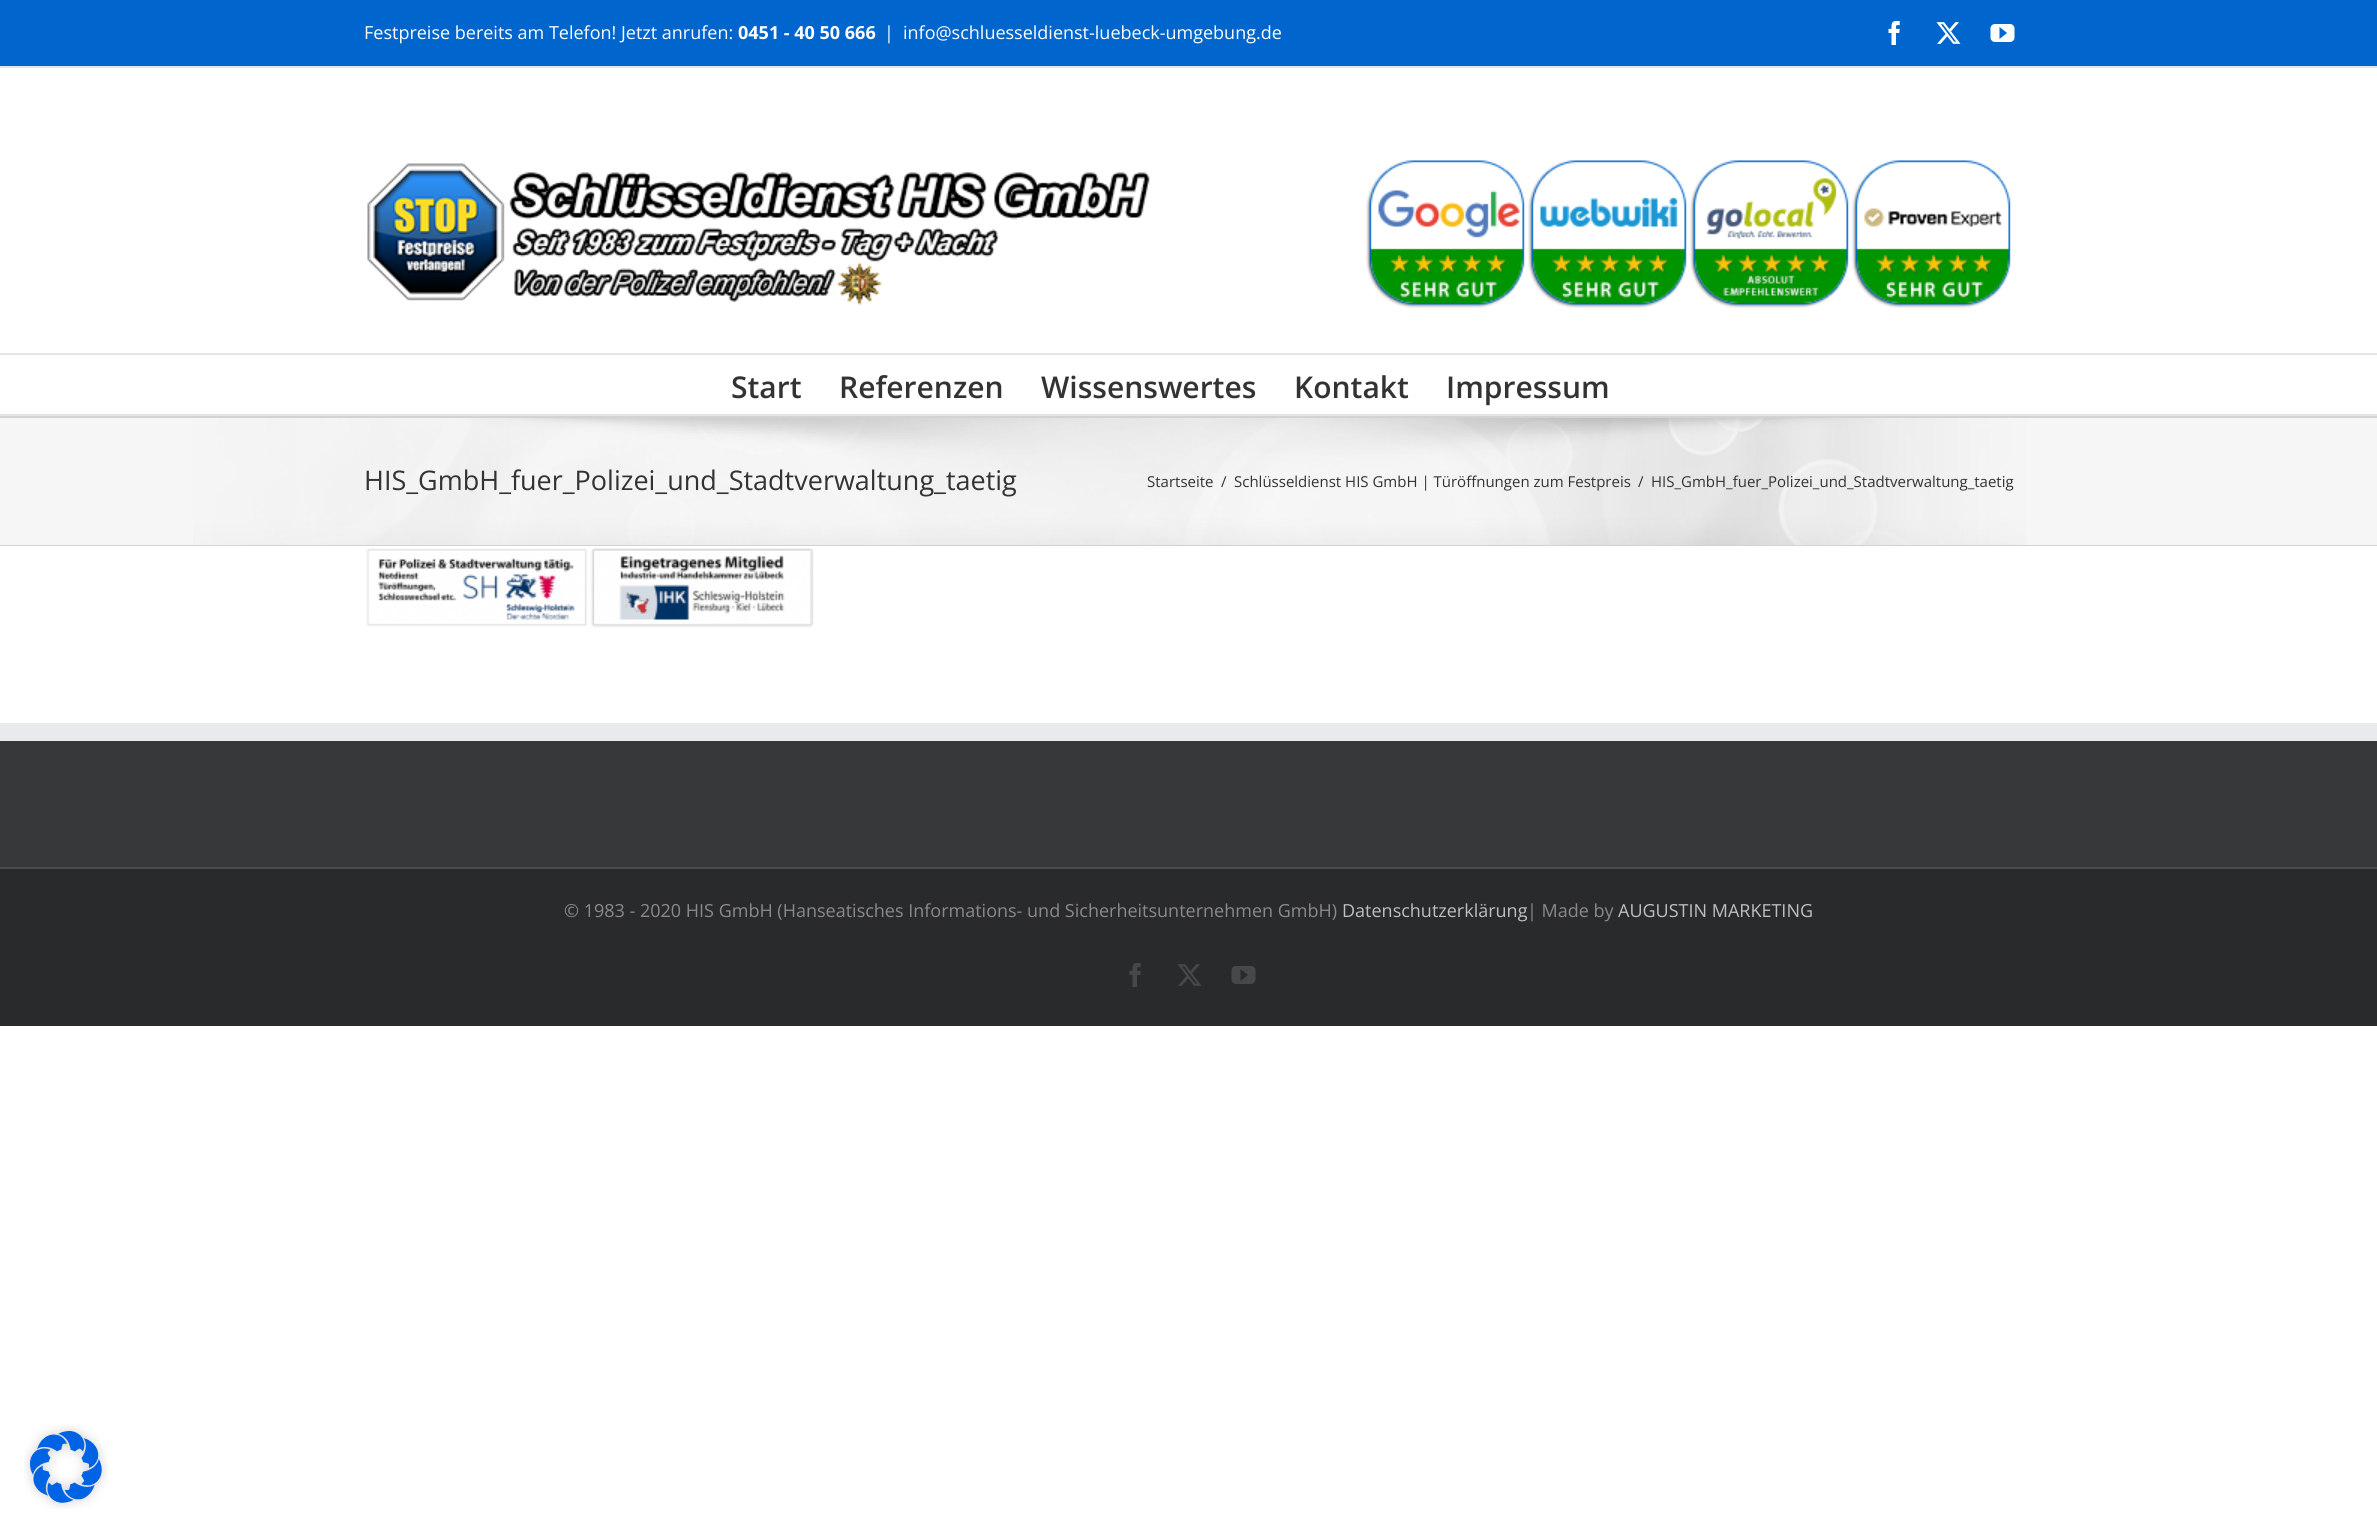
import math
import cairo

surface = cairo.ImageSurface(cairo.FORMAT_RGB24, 2377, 1533)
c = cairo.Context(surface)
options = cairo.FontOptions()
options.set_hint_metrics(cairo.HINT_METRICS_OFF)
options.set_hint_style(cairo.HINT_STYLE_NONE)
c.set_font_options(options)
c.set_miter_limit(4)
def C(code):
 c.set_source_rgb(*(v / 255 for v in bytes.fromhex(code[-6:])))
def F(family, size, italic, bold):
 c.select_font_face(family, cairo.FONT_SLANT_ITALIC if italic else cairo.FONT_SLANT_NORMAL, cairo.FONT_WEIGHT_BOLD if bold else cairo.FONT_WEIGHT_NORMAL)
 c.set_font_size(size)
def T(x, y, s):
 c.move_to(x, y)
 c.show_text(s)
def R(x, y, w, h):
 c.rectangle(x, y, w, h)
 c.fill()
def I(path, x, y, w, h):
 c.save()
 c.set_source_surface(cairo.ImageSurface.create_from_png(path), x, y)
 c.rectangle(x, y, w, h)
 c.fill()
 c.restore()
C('ffffff')
c.paint()
C('0065cc')
R(0,0,2377,66)
C('e5e5e5')
R(0,66,2377,2)
F('Open Sans',18,0,0)
C('ffffff')
T(364,39,'Festpreise bereits am Telefon! Jetzt anrufen:')
F('Open Sans',18,0,1)
T(738,39,'0451 - 40 50 666')
F('Open Sans',18,0,0)
T(884,39,'|')
T(903,39,'info@schluesseldienst-luebeck-umgebung.de')
I('1.png',1888,21,12,24)
I('2.png',1936,22,25,22)
I('3.png',1990,24,25,18)
C('e5e5e5')
R(0,353,2377,2)
I('4.png',367,163,783,142)
I('5.png',1366,160,159,148)
I('6.png',1528,160,159,148)
I('7.png',1690,160,159,148)
I('8.png',1852,160,159,148)
R(0,414,2377,2)
F('Open Sans SemiBold',30,0,0)
C('333333')
T(731,398,'Start')
T(839,398,'Referenzen')
T(1041,398,'Wissenswertes')
T(1294,398,'Kontakt')
T(1446,398,'Impressum')
C('f6f6f6')
R(0,418,2377,127)
I('9.png',193,418,1833,127)
C('d2d3d4')
R(0,416,2377,2)
R(0,545,2377,1)
F('Open Sans',27,0,0)
C('333333')
T(364,490,'HIS_GmbH_fuer_Polizei_und_Stadtverwaltung_taetig')
F('Open Sans',15,0,0)
T(1147,487,'Startseite')
T(1221,487,'/')
T(1234,487,'Schlüsseldienst HIS GmbH | Türöffnungen zum Festpreis')
T(1638,487,'/')
T(1651,487,'HIS_GmbH_fuer_Polizei_und_Stadtverwaltung_taetig')
I('10.png',366,548,448,80)
C('363839')
R(0,741,2377,126)
C('e9eaee')
R(0,723,2377,18)
C('282a2b')
R(0,869,2377,157)
C('4b4c4d')
R(0,867,2377,2)
F('Open Sans',18,0,0)
C('8c8989')
T(564,917,'© 1983 - 2020 HIS GmbH (Hanseatisches Informations- und Sicherheitsunternehmen GmbH)')
C('bfbfbf')
T(1342,917,'Datenschutzerklärung')
C('8c8989')
T(1527,917,'| Made by')
C('bfbfbf')
T(1618,917,'AUGUSTIN MARKETING')
I('11.png',1129,963,12,24)
I('12.png',1177,964,25,22)
I('13.png',1231,966,25,18)
I('14.png',24,1425,84,84)
surface.write_to_png('o.png')
